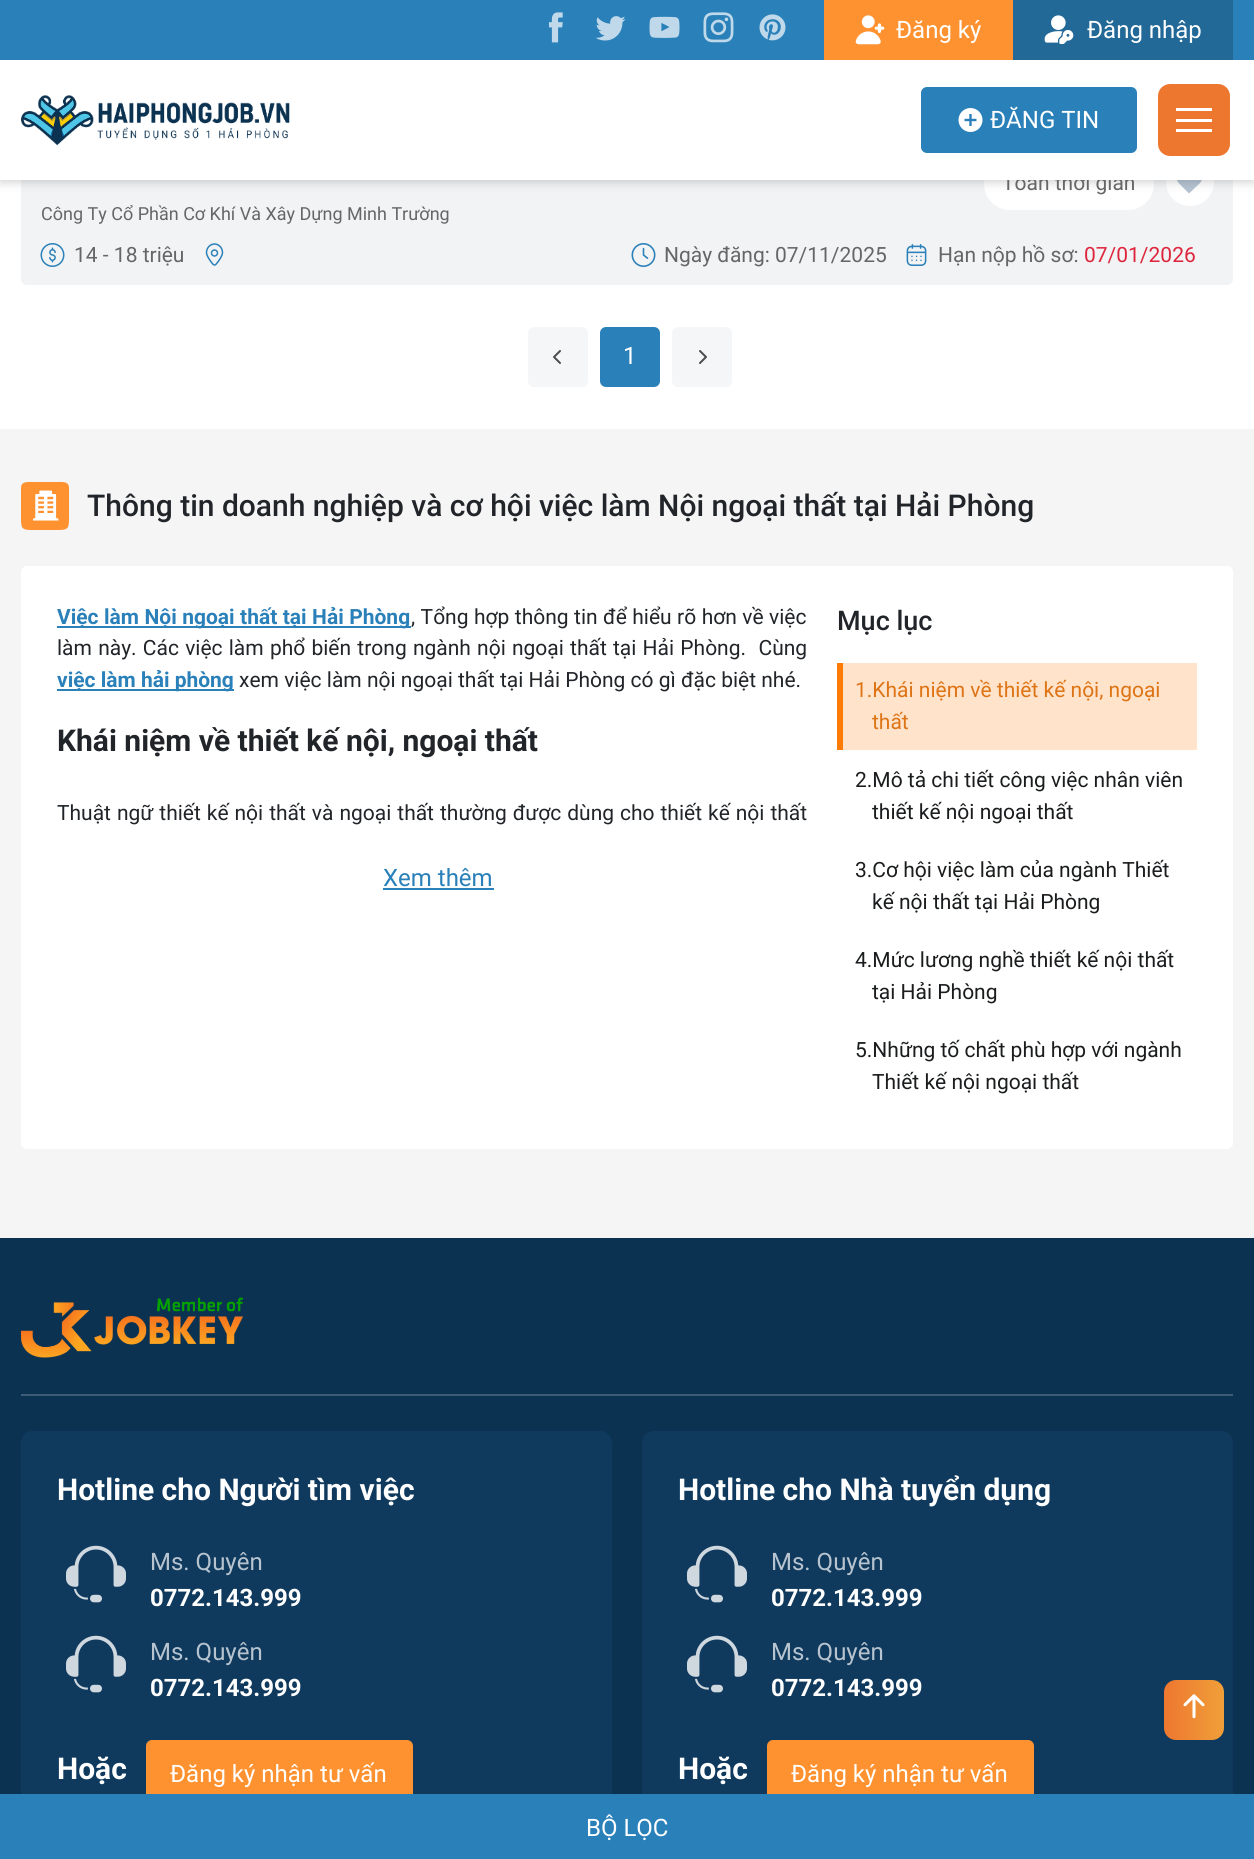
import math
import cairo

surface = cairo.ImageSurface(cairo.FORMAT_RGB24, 1254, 1859)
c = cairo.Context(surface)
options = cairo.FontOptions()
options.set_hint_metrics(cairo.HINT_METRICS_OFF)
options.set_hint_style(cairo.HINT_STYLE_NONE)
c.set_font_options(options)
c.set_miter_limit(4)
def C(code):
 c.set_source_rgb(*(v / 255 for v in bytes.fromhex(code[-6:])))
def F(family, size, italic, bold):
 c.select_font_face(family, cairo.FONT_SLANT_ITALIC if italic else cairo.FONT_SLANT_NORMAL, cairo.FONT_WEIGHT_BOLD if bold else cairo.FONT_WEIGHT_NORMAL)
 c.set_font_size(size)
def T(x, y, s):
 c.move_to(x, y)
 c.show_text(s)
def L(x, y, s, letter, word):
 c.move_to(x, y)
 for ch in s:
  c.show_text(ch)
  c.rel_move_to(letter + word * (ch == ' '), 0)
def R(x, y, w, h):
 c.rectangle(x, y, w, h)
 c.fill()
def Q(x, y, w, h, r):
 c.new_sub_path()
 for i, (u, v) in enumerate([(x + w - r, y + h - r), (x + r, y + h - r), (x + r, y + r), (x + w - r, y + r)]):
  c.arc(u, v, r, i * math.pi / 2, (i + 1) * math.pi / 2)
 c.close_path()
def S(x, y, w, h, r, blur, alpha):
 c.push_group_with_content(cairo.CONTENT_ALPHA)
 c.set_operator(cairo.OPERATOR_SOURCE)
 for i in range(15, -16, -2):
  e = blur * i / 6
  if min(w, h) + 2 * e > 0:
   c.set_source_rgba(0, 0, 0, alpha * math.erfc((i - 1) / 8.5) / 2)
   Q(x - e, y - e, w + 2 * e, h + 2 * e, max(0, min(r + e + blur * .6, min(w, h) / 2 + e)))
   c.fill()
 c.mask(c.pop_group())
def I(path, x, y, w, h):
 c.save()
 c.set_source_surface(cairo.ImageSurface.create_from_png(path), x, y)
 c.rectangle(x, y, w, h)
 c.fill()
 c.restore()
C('ffffff')
c.paint()
C('f1f3f5')
Q(22,37,1210,247,5)
c.fill_preserve()
c.stroke()
C('ffffff')
Q(984,158,170,52,26)
c.fill()
c.arc(1190,182,24,0,2 * math.pi)
c.fill()
C('b5c3d2')
c.new_path()
c.move_to(1200,183)
c.line_to(1189,193.5)
c.line_to(1182,186.5)
c.curve_to(1180.5,184.5,1178,183,1177,180.5)
c.curve_to(1173.5,173,1183.5,166,1189,172)
c.curve_to(1196,165,1207,175.5,1200,183)
c.close_path()
c.fill()
C('333333')
S(0,3,1254,180,0,4.5,.2)
C('2a80b9')
R(0,0,1254,60)
I('1.png',549,12,14,31)
I('2.png',595,16,31,25)
I('3.png',649,16,31,22)
I('4.png',703,12,31,31)
I('5.png',759,14,27,27)
C('ff9230')
R(824,0,189,60)
I('6.png',855,15,30,30)
F('Roboto',24,0,0)
C('ffffff')
T(896,38,'Đăng ký')
C('236997')
R(1013,0,220,60)
I('7.png',1044,15,30,29)
C('ffffff')
T(1087,38,'Đăng nhập')
F('Roboto',21,0,0)
C('666666')
T(1002,190,'Toàn thời gian')
C('ffffff')
R(0,60,1254,120)
I('8.png',21,95,269,51)
C('2a80b9')
Q(922,88,214,64,5)
c.fill_preserve()
c.stroke()
I('9.png',958,108,25,24)
F('Roboto',24,0,0)
C('ffffff')
T(990,128,'ĐĂNG TIN')
C('ee7730')
Q(1158,84,72,72,12)
c.fill()
C('ffffff')
R(1176,108,36,3)
R(1176,119,36,3)
R(1176,129,36,3)
F('Roboto',18,0,0)
C('666666')
T(41,220,'Công Ty Cổ Phần Cơ Khí Và Xây Dựng Minh Trường')
I('10.png',40,243,25,24)
F('Roboto',21,0,0)
T(74,262,'14 - 18 triệu')
I('11.png',205,243,19,23)
I('12.png',631,243,25,24)
T(664,262,'Ngày đăng: 07/11/2025')
I('13.png',906,244,21,22)
T(938,262,'Hạn nộp hồ sơ:')
C('dd263c')
T(1084,262,'07/01/2026')
C('f4f6f8')
Q(528,327,60,60,6)
c.fill()
I('14.png',553,350,8,14)
C('2a80b9')
Q(600,327,60,60,6)
c.fill()
F('Roboto',24,0,0)
C('ffffff')
T(623,364,'1')
C('f4f6f8')
Q(672,327,60,60,6)
c.fill()
I('15.png',699,350,8,14)
C('0c3251')
R(0,1238,1254,556)
C('0f3a5e')
Q(21,1431,591,411,12)
c.fill()
C('ff9230')
Q(147,1741,265,64,5)
c.fill_preserve()
c.stroke()
C('0f3a5e')
Q(642,1431,591,411,12)
c.fill()
C('ff9230')
Q(768,1741,265,64,5)
c.fill_preserve()
c.stroke()
C('2a80b9')
R(0,1794,1254,65)
C('ffffff')
T(586,1836,'BỘ LỌC')
C('f5f5f5')
R(0,429,1254,809)
C('ff9230')
c.new_path()
c.move_to(21,488)
c.curve_to(21,481,28,482,33,482)
c.line_to(57,482)
c.curve_to(62,482,69,481,69,488)
c.line_to(69,518)
c.curve_to(69,529,68,530,57,530)
c.line_to(33,530)
c.curve_to(22,530,21,529,21,518)
c.close_path()
c.fill()
I('16.png',33,490,26,31)
F('Roboto Medium',30,0,0)
C('212529')
T(87,516,'Thông tin doanh nghiệp và cơ hội việc làm Nội ngoại thất tại Hải Phòng')
C('ffffff')
Q(21,566,1212,583,6)
c.fill()
C('2a80b9')
R(57,626,354,2)
F('Roboto',21,0,1)
L(57,624,'Việc làm Nội ngoại thất tại Hải Phòng',0,.25)
F('Roboto',21,0,0)
C('212529')
L(411,624,', Tổng hợp thông tin để hiểu rõ hơn về việc',0,.25)
L(57,655,'làm này. Các việc làm phổ biến trong ngành nội ngoại thất tại Hải Phòng.  Cùng',0,1)
C('2a80b9')
R(57,689,177,2)
F('Roboto',21,0,1)
T(57,687,'việc làm hải phòng')
F('Roboto',21,0,0)
C('212529')
T(239,687,'xem việc làm nội ngoại thất tại Hải Phòng có gì đặc biệt nhé.')
F('Roboto',30,0,1)
T(57,751,'Khái niệm về thiết kế nội, ngoại thất')
F('Roboto',21,0,0)
L(57,820,'Thuật ngữ thiết kế nội thất và ngoại thất thường được dùng cho thiết kế nội thất',0,.75)
F('Roboto',24,0,0)
C('2a80b9')
T(383,886,'Xem thêm')
R(383,888,111,2)
F('Roboto Medium',27,0,0)
C('212529')
T(837,630,'Mục lục')
C('ffe3ca')
R(843,663,354,87)
C('fe7b05')
R(837,663,6,87)
F('Roboto',21,0,0)
C('dd7415')
T(855,697,'1.Khái niệm về thiết kế nội, ngoại')
T(872,729,'thất')
C('1a1c1d')
T(855,787,'2.Mô tả chi tiết công việc nhân viên')
T(872,819,'thiết kế nội ngoại thất')
T(855,877,'3.Cơ hội việc làm của ngành Thiết')
T(872,909,'kế nội thất tại Hải Phòng')
T(855,967,'4.Mức lương nghề thiết kế nội thất')
T(872,999,'tại Hải Phòng')
T(855,1057,'5.Những tố chất phù hợp với ngành')
T(872,1089,'Thiết kế nội ngoại thất')
C('3d5b74')
R(21,1394,1212,2)
I('17.png',21,1297,222,61)
F('Roboto',30,0,1)
C('ffffff')
T(57,1500,'Hotline cho Người tìm việc')
I('18.png',66,1545,60,58)
F('Roboto',24,0,0)
C('b7c4cf')
T(150,1570,'Ms. Quyên')
F('Roboto',24,0,1)
C('ffffff')
T(150,1606,'0772.143.999')
I('18.png',66,1635,60,58)
F('Roboto',24,0,0)
C('b7c4cf')
T(150,1660,'Ms. Quyên')
F('Roboto',24,0,1)
C('ffffff')
T(150,1696,'0772.143.999')
F('Roboto',30,0,1)
T(57,1779,'Hoặc')
F('Roboto',24,0,0)
T(170,1782,'Đăng ký nhận tư vấn')
F('Roboto',30,0,1)
T(678,1500,'Hotline cho Nhà tuyển dụng')
I('19.png',687,1545,60,58)
F('Roboto',24,0,0)
C('b7c4cf')
T(771,1570,'Ms. Quyên')
F('Roboto',24,0,1)
C('ffffff')
T(771,1606,'0772.143.999')
I('19.png',687,1635,60,58)
F('Roboto',24,0,0)
C('b7c4cf')
T(771,1660,'Ms. Quyên')
F('Roboto',24,0,1)
C('ffffff')
T(771,1696,'0772.143.999')
F('Roboto',30,0,1)
T(678,1779,'Hoặc')
F('Roboto',24,0,0)
T(791,1782,'Đăng ký nhận tư vấn')
gradient = cairo.LinearGradient(1164,1710,1224,1710)
gradient.add_color_stop_rgba(0,0.933,0.467,0.188,1)
gradient.add_color_stop_rgba(1,0.941,0.624,0.224,1)
c.set_source(gradient)
Q(1164,1680,60,60,12)
c.fill()
I('20.png',1183,1694,22,25)
surface.write_to_png('o.png')
